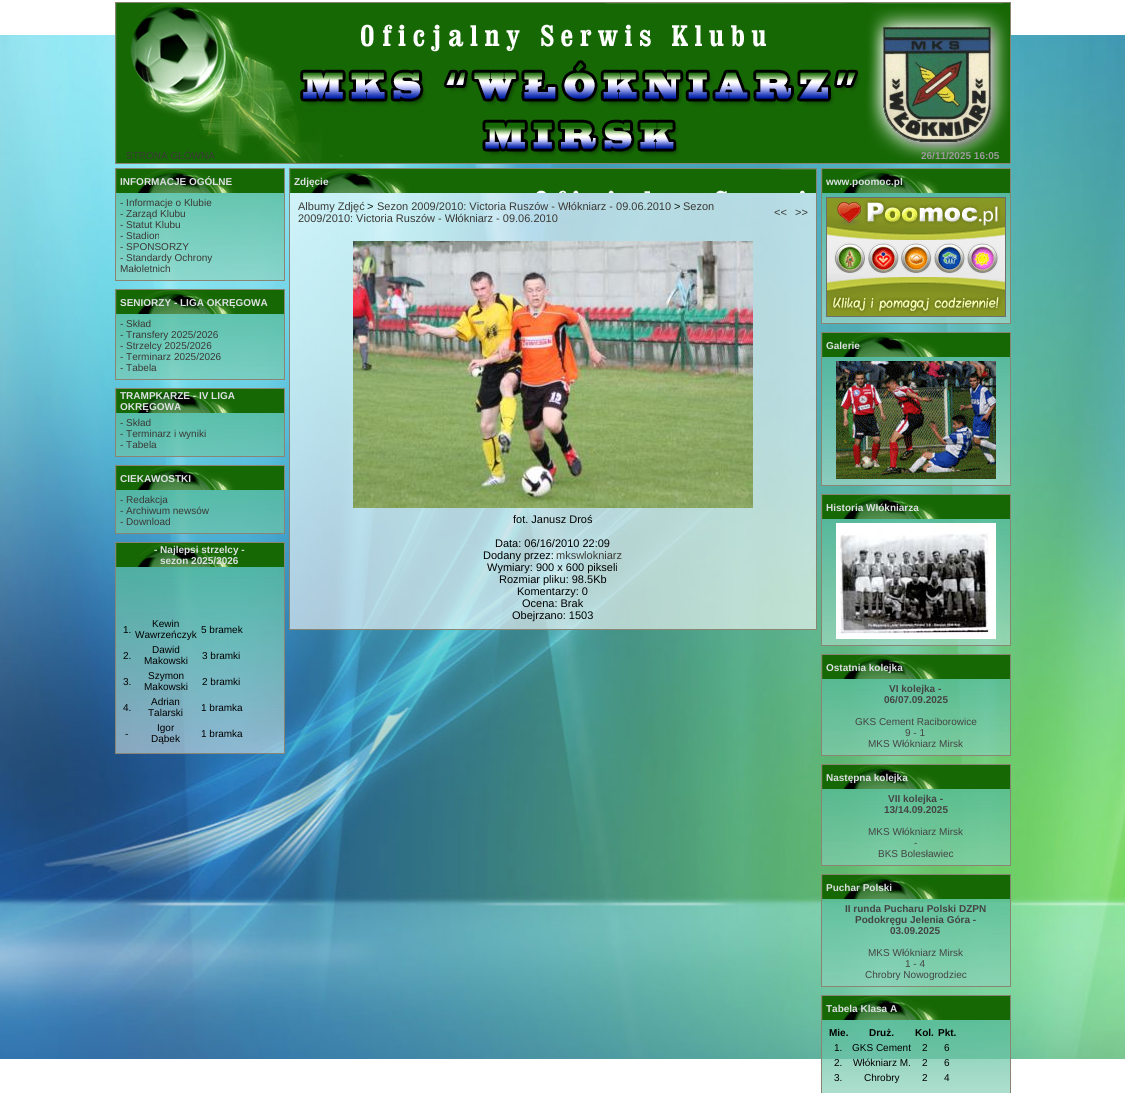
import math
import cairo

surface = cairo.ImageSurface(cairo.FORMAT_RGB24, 1125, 1093)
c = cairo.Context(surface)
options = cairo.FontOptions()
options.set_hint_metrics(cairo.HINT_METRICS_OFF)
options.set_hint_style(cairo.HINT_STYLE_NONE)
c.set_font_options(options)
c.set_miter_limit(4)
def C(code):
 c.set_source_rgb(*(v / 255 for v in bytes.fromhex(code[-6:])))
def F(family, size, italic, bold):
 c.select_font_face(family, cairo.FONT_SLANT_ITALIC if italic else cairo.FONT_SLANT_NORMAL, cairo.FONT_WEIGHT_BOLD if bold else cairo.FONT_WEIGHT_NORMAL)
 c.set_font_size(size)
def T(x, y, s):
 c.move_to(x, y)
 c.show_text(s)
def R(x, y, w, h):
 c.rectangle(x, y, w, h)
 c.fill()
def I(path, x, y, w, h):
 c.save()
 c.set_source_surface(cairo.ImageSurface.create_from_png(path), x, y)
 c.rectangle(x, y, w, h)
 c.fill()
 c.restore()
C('ffffff')
c.paint()
I('1.png',0,35,1125,1024)
I('2.png',116,3,894,160)
c.rectangle(115.5,2.5,895,161)
C('8a8573')
c.set_line_width(1)
c.stroke()
F('Liberation Sans',10,0,0)
C('3a3935')
T(126,159,'STRONA GŁÓWNA')
F('Liberation Sans',10,0,1)
C('999999')
T(921,159,'26/11/2025 16:05')
c.rectangle(115.5,168.5,169,112)
C('8a8573')
c.stroke()
I('3.png',116,169,168,24)
C('dce0e2')
T(120,185,'INFORMACJE OGÓLNE')
I('4.png',116,193,168,87)
F('Liberation Sans',10,0,0)
C('3a3935')
T(120,206,'- Informacje o Klubie')
T(120,217,'- Zarząd Klubu')
T(120,228,'- Statut Klubu')
T(120,239,'- Stadion')
T(120,250,'- SPONSORZY')
T(120,261,'- Standardy Ochrony')
T(120,272,'Małoletnich')
c.rectangle(115.5,289.5,169,90)
C('8a8573')
c.stroke()
I('3.png',116,290,168,24)
F('Liberation Sans',10,0,1)
C('dce0e2')
T(120,306,'SENIORZY - LIGA OKRĘGOWA')
I('5.png',116,314,168,65)
F('Liberation Sans',10,0,0)
C('3a3935')
T(120,327,'- Skład')
T(120,338,'- Transfery 2025/2026')
T(120,349,'- Strzelcy 2025/2026')
T(120,360,'- Terminarz 2025/2026')
T(120,371,'- Tabela')
c.rectangle(115.5,388.5,169,68)
C('8a8573')
c.stroke()
I('3.png',116,389,168,24)
F('Liberation Sans',10,0,1)
C('dce0e2')
T(120,399,'TRAMPKARZE - IV LIGA')
T(120,410,'OKRĘGOWA')
I('6.png',116,413,168,43)
F('Liberation Sans',10,0,0)
C('3a3935')
T(120,426,'- Skład')
T(120,437,'- Terminarz i wyniki')
T(120,448,'- Tabela')
c.rectangle(115.5,465.5,169,68)
C('8a8573')
c.stroke()
I('3.png',116,466,168,24)
F('Liberation Sans',10,0,1)
C('dce0e2')
T(120,482,'CIEKAWOSTKI')
I('7.png',116,490,168,43)
F('Liberation Sans',10,0,0)
C('3a3935')
T(120,503,'- Redakcja')
T(120,514,'- Archiwum newsów')
T(120,525,'- Download')
c.rectangle(115.5,542.5,169,211)
C('8a8573')
c.stroke()
I('3.png',116,543,168,24)
F('Liberation Sans',10,0,1)
C('dce0e2')
T(154,553,'- Najlepsi strzelcy -')
T(160,564,'sezon 2025/2026')
I('8.png',116,567,168,186)
F('Liberation Sans',10,0,0)
C('000000')
T(123,633,'1.')
T(152,627,'Kewin')
T(135,638,'Wawrzeńczyk')
T(201,633,'5 bramek')
T(123,659,'2.')
T(152,653,'Dawid')
T(144,664,'Makowski')
T(202,659,'3 bramki')
T(123,685,'3.')
T(148,679,'Szymon')
T(144,690,'Makowski')
T(202,685,'2 bramki')
T(123,711,'4.')
T(151,705,'Adrian')
T(148,716,'Talarski')
T(201,711,'1 bramka')
T(125,737,'-')
T(157,731,'Igor')
T(151,742,'Dąbek')
T(201,737,'1 bramka')
C('8a8573')
R(289,168,528,1)
R(816,168,1,462)
R(289,168,1,25)
I('9.png',290,169,526,24)
F('Liberation Sans',10,0,1)
C('dce0e2')
T(294,185,'Zdjęcie')
C('8a8573')
R(289,629,528,1)
R(289,193,1,437)
c.set_source_rgba(1,1,1,0.6)
R(290,193,526,436)
F('Liberation Sans',11,0,0)
C('3a3935')
T(298,210,'Albumy Zdjęć')
C('091609')
T(367,210,'>')
C('3a3935')
T(377,210,'Sezon 2009/2010: Victoria Ruszów - Włókniarz - 09.06.2010')
C('091609')
T(674,210,'>')
C('3a3935')
T(683,210,'Sezon')
T(298,222,'2009/2010: Victoria Ruszów - Włókniarz - 09.06.2010')
T(774,216,'<<')
T(795,216,'>>')
I('10.png',353,241,400,267)
C('000000')
T(513,523,'fot. Janusz Droś')
T(495,547,'Data: 06/16/2010 22:09')
T(483,559,'Dodany przez:')
C('3a3935')
T(556,559,'mkswlokniarz')
C('000000')
T(487,571,'Wymiary: 900 x 600 pikseli')
T(499,583,'Rozmiar pliku: 98.5Kb')
T(517,595,'Komentarzy: 0')
T(522,607,'Ocena: Brak')
T(512,619,'Obejrzano: 1503')
c.rectangle(821.5,168.5,189,155)
C('8a8573')
c.stroke()
I('11.png',822,169,188,24)
F('Liberation Sans',10,0,1)
C('dce0e2')
T(826,185,'www.poomoc.pl')
I('12.png',822,193,188,130)
I('13.png',826,197,180,120)
c.rectangle(821.5,332.5,189,153)
C('8a8573')
c.stroke()
I('11.png',822,333,188,24)
C('dce0e2')
T(826,349,'Galerie')
I('14.png',822,357,188,128)
I('15.png',836,361,160,118)
c.rectangle(821.5,494.5,189,151)
C('8a8573')
c.stroke()
I('11.png',822,495,188,24)
C('dce0e2')
T(826,511,'Historia Włókniarza')
I('16.png',822,519,188,126)
I('17.png',836,523,160,116)
c.rectangle(821.5,654.5,189,101)
C('8a8573')
c.stroke()
I('11.png',822,655,188,24)
C('dce0e2')
T(826,671,'Ostatnia kolejka')
I('18.png',822,679,188,76)
C('444444')
T(889,692,'VI kolejka -')
T(884,703,'06/07.09.2025')
F('Liberation Sans',10,0,0)
T(855,725,'GKS Cement Raciborowice')
T(905,736,'9 - 1')
T(868,747,'MKS Włókniarz Mirsk')
c.rectangle(821.5,764.5,189,101)
C('8a8573')
c.stroke()
I('11.png',822,765,188,24)
F('Liberation Sans',10,0,1)
C('dce0e2')
T(826,781,'Następna kolejka')
I('19.png',822,789,188,76)
C('444444')
T(888,802,'VII kolejka -')
T(884,813,'13/14.09.2025')
F('Liberation Sans',10,0,0)
T(868,835,'MKS Włókniarz Mirsk')
T(914,846,'-')
T(878,857,'BKS Bolesławiec')
c.rectangle(821.5,874.5,189,112)
C('8a8573')
c.stroke()
I('11.png',822,875,188,24)
F('Liberation Sans',10,0,1)
C('dce0e2')
T(826,891,'Puchar Polski')
I('20.png',822,899,188,87)
C('444444')
T(845,912,'II runda Pucharu Polski DZPN')
T(855,923,'Podokręgu Jelenia Góra -')
T(890,934,'03.09.2025')
F('Liberation Sans',10,0,0)
T(868,956,'MKS Włókniarz Mirsk')
T(905,967,'1 - 4')
T(865,978,'Chrobry Nowogrodziec')
c.rectangle(821.5,995.5,189,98)
C('8a8573')
c.stroke()
I('11.png',822,996,188,24)
F('Liberation Sans',10,0,1)
C('dce0e2')
T(826,1012,'Tabela Klasa A')
I('21.png',822,1020,188,73)
C('000000')
T(829,1036,'Mie.')
T(869,1036,'Druż.')
T(915,1036,'Kol.')
T(938,1036,'Pkt.')
F('Liberation Sans',10,0,0)
T(834,1051,'1.')
T(852,1051,'GKS Cement')
T(922,1051,'2')
T(944,1051,'6')
T(834,1066,'2.')
T(853,1066,'Włókniarz M.')
T(922,1066,'2')
T(944,1066,'6')
T(834,1081,'3.')
T(864,1081,'Chrobry')
T(922,1081,'2')
T(944,1081,'4')
surface.write_to_png('o.png')
